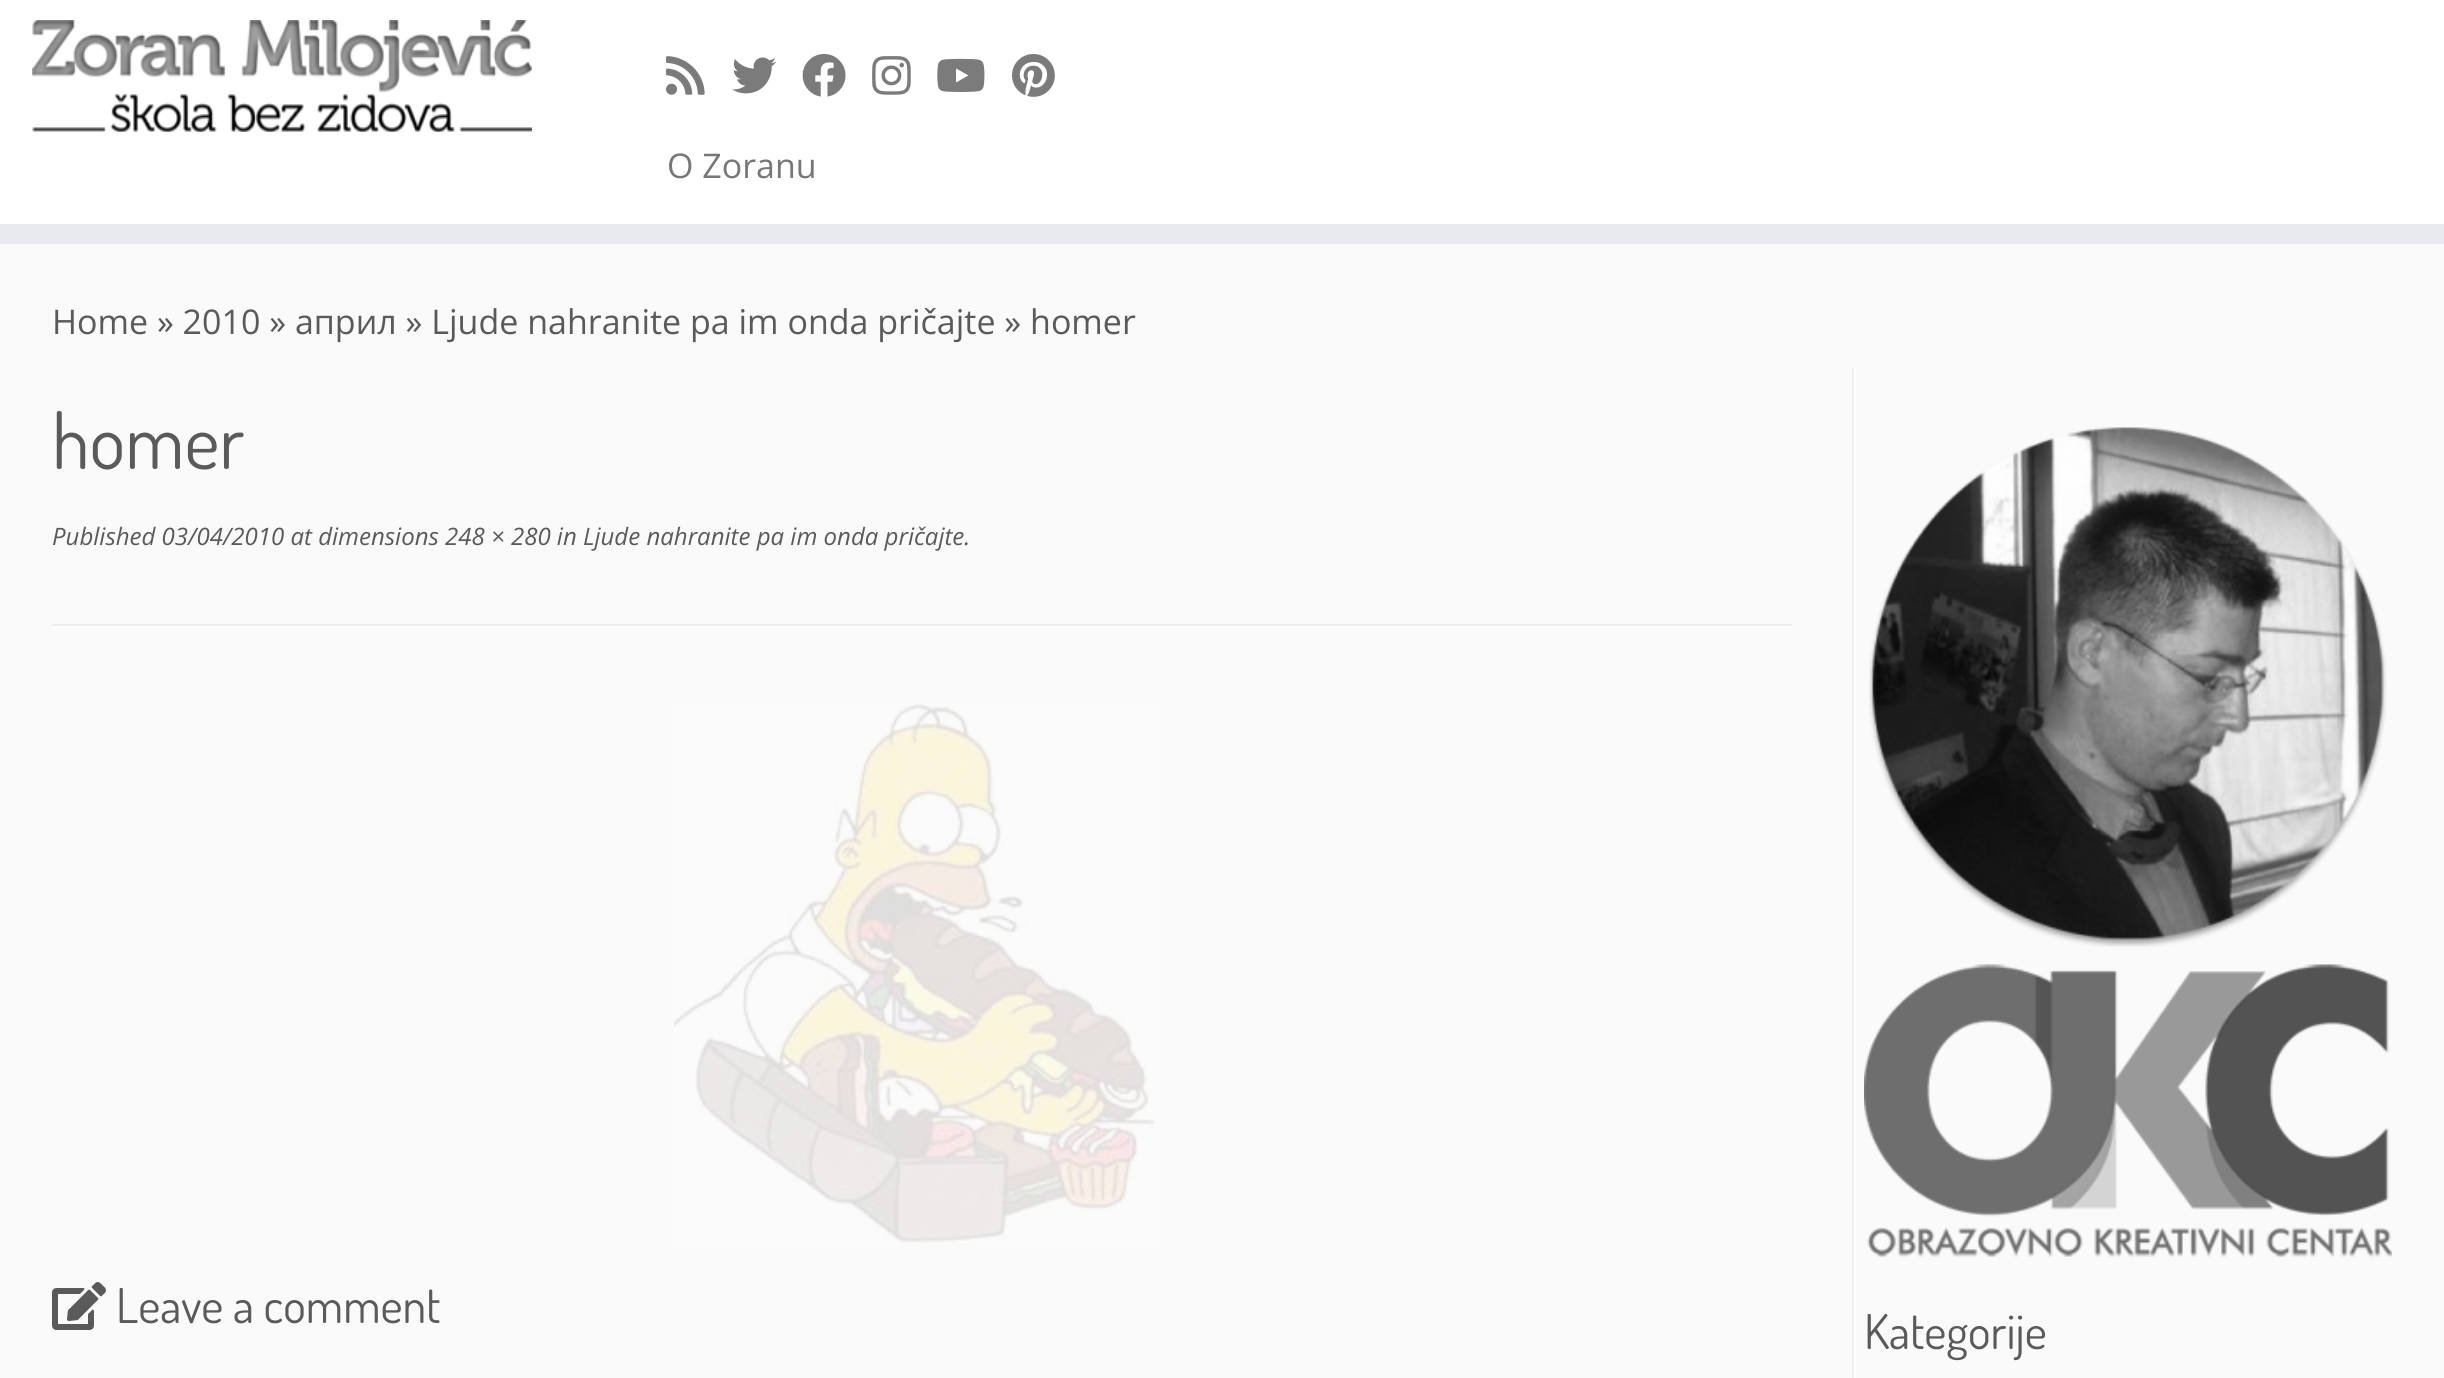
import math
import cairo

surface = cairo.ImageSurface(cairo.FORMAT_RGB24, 2444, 1378)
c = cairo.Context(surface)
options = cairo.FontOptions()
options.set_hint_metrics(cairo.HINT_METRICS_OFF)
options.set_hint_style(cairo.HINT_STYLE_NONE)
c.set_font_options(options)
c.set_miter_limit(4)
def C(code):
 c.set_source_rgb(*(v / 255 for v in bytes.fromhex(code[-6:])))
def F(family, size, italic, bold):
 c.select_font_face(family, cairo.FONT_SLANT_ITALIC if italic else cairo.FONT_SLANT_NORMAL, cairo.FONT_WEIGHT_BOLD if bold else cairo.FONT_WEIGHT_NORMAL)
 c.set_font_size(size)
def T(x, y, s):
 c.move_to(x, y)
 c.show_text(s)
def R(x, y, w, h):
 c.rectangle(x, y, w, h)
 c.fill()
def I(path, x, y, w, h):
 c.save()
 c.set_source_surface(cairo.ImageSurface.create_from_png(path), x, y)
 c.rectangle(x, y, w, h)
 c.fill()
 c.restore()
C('fafafa')
c.paint()
C('ffffff')
R(0,0,2444,224)
C('e9eaee')
R(0,224,2444,20)
I('1.png',32,20,500,112)
I('2.png',666,56,39,39)
I('3.png',732,57,44,37)
I('4.png',802,54,44,43)
I('5.png',872,56,39,39)
I('6.png',937,58,48,34)
I('7.png',1012,54,43,43)
F('Open Sans',34,0,0)
C('777777')
T(667,178,'O Zoranu')
C('5a5a5a')
T(52,334,'Home » 2010 » април » Ljude nahranite pa im onda pričajte » homer')
F('Dosis',76,0,0)
T(52,469,'homer')
F('Open Sans',24,1,0)
T(52,545,'Published 03/04/2010 at dimensions 248 × 280 in Ljude nahranite pa im onda pričajte.')
C('eeeeee')
R(52,624,1740,2)
C('ffffff')
R(52,626,1740,2)
I('8.png',674,704,480,539)
I('9.png',52,1282,54,48)
F('Dosis',48,0,0)
C('5a5a5a')
T(116,1323,'Leave a comment')
C('eeeeee')
R(1852,368,2,1010)
C('ffffff')
R(1854,368,2,1010)
I('10.png',1869,427,518,520)
I('11.png',1864,964,528,293)
C('5a5a5a')
T(1864,1349,'Kategorije')
surface.write_to_png('o.png')
